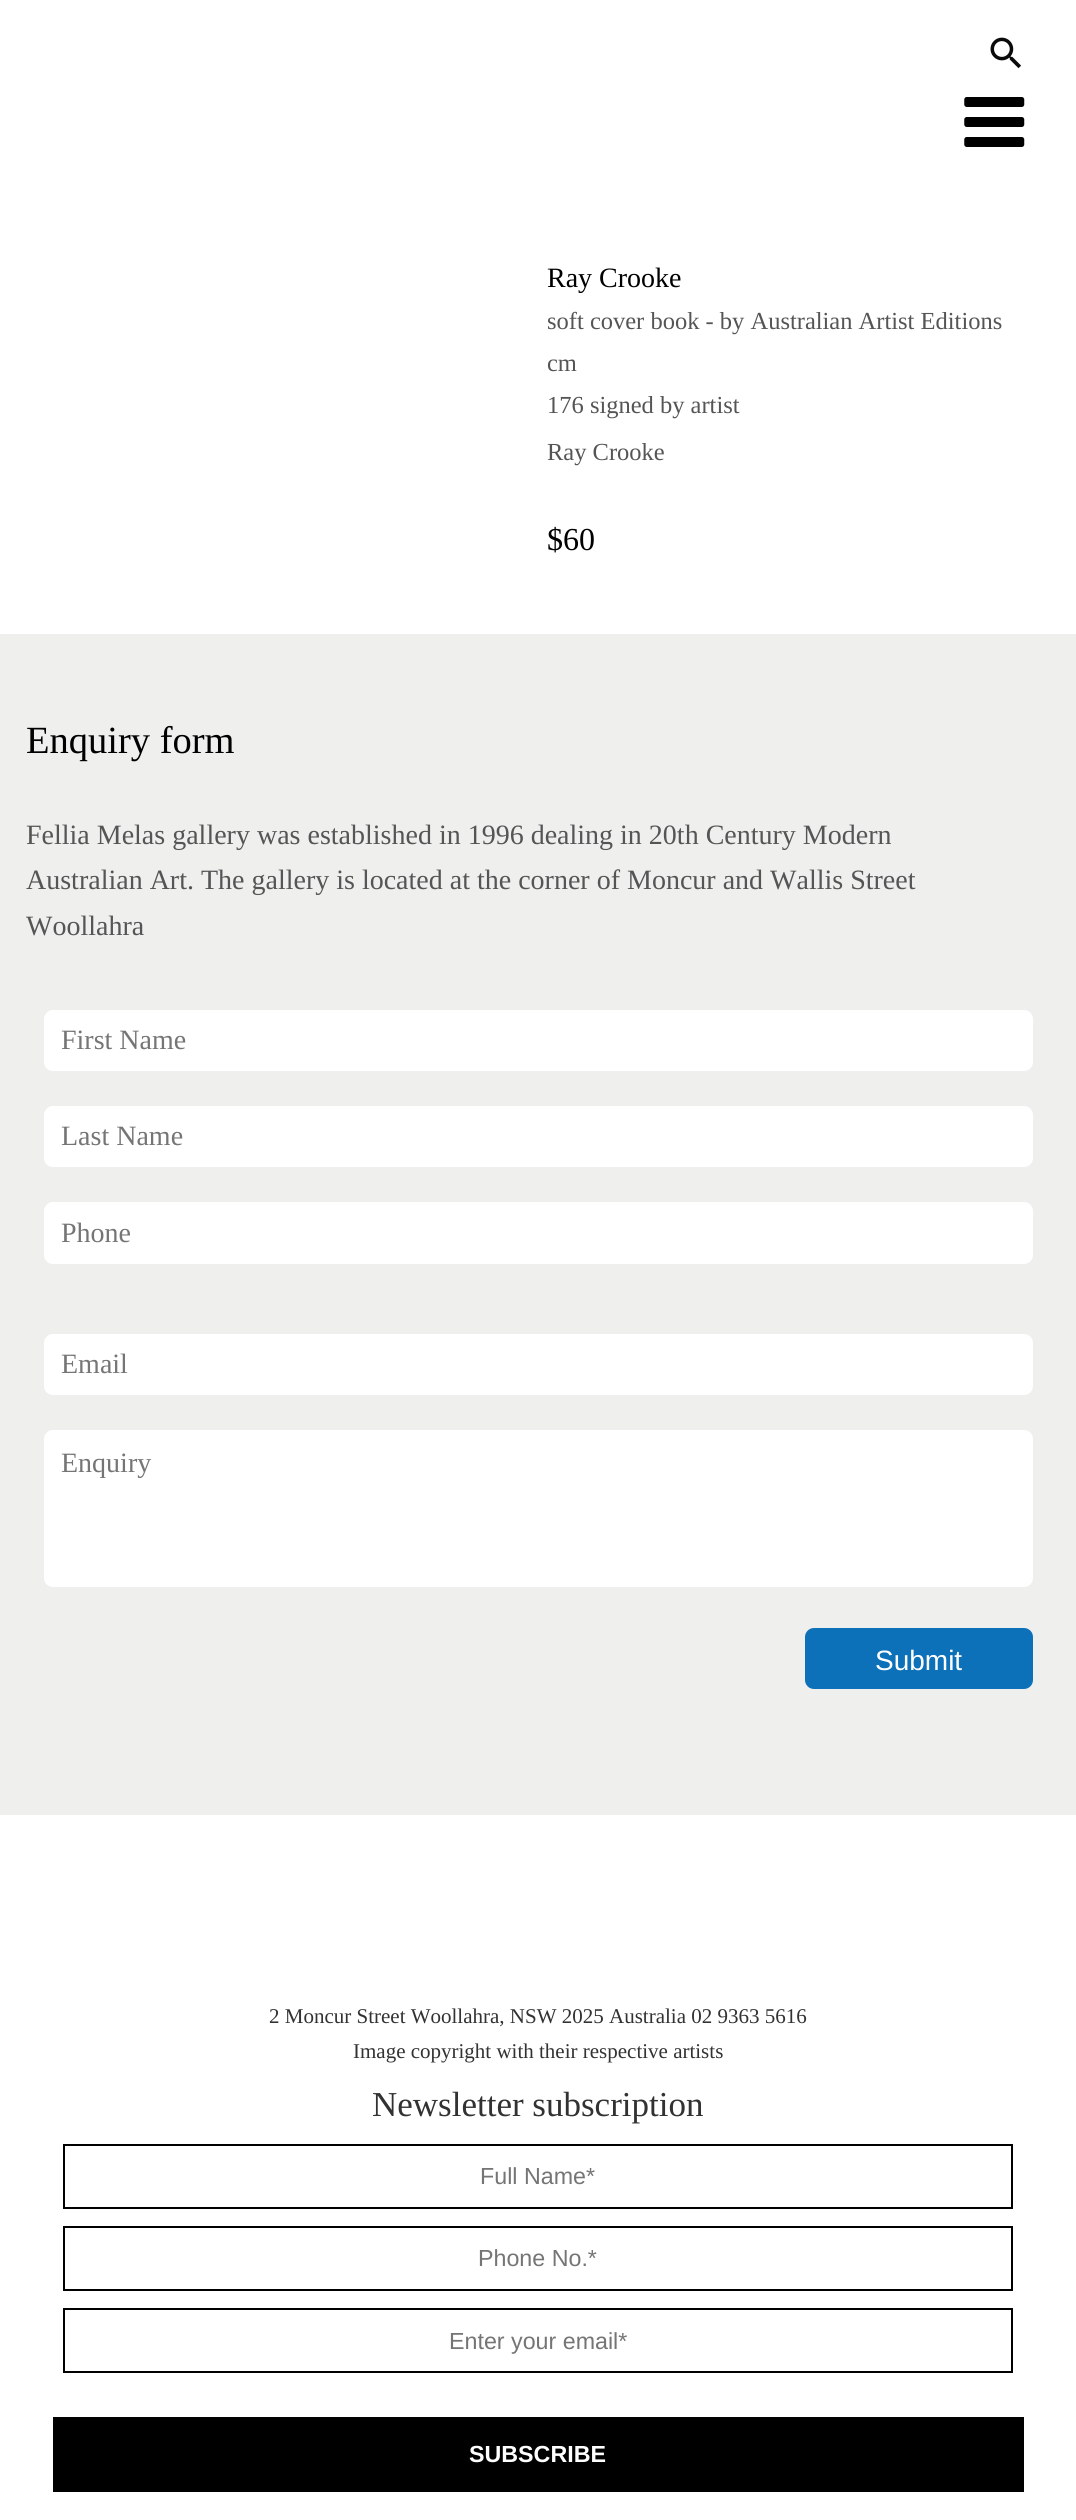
import math
import cairo

surface = cairo.ImageSurface(cairo.FORMAT_RGB24, 1076, 2520)
c = cairo.Context(surface)
options = cairo.FontOptions()
options.set_hint_metrics(cairo.HINT_METRICS_OFF)
options.set_hint_style(cairo.HINT_STYLE_NONE)
c.set_font_options(options)
c.set_miter_limit(4)
def C(code):
 c.set_source_rgb(*(v / 255 for v in bytes.fromhex(code[-6:])))
def F(family, size, italic, bold):
 c.select_font_face(family, cairo.FONT_SLANT_ITALIC if italic else cairo.FONT_SLANT_NORMAL, cairo.FONT_WEIGHT_BOLD if bold else cairo.FONT_WEIGHT_NORMAL)
 c.set_font_size(size)
def T(x, y, s):
 c.move_to(x, y)
 c.show_text(s)
def R(x, y, w, h):
 c.rectangle(x, y, w, h)
 c.fill()
def Q(x, y, w, h, r):
 c.new_sub_path()
 for i, (u, v) in enumerate([(x + w - r, y + h - r), (x + r, y + h - r), (x + r, y + r), (x + w - r, y + r)]):
  c.arc(u, v, r, i * math.pi / 2, (i + 1) * math.pi / 2)
 c.close_path()
def I(path, x, y, w, h):
 c.save()
 c.set_source_surface(cairo.ImageSurface.create_from_png(path), x, y)
 c.rectangle(x, y, w, h)
 c.fill()
 c.restore()
C('ffffff')
c.paint()
I('1.png',990,37,31,32)
I('2.png',964,97,61,50)
F('Liberation Serif',28,0,0)
C('000000')
T(547,287,'Ray Crooke')
F('Liberation Serif',24.5,0,0)
C('555556')
T(547,329,'soft cover book - by Australian Artist Editions')
T(547,371,'cm')
T(547,413,'176 signed by artist')
T(547,460,'Ray Crooke')
F('Liberation Serif',32,0,0)
C('000000')
T(547,550,'$60')
C('efefee')
R(0,634,1076,1181)
F('Liberation Serif',38.5,0,0)
C('000000')
T(26,753,'Enquiry form')
F('Liberation Serif',28,0,0)
C('555556')
T(26,844,'Fellia Melas gallery was established in 1996 dealing in 20th Century Modern')
T(26,889,'Australian Art. The gallery is located at the corner of Moncur and Wallis Street')
T(26,935,'Woollahra')
C('ffffff')
Q(44,1010,989,61,9)
c.fill()
C('757575')
T(61,1049,'First Name')
C('ffffff')
Q(44,1106,989,61,9)
c.fill()
C('757575')
T(61,1145,'Last Name')
C('ffffff')
Q(44,1202,989,62,9)
c.fill()
C('757575')
T(61,1242,'Phone')
C('ffffff')
Q(44,1334,989,61,9)
c.fill()
C('757575')
T(61,1373,'Email')
C('ffffff')
Q(44,1430,989,157,9)
c.fill()
C('757575')
T(61,1472,'Enquiry')
C('0d71b9')
Q(805,1628,228,61,9)
c.fill()
F('Liberation Sans',28,0,0)
C('ffffff')
T(875,1670,'Submit')
F('Liberation Serif',21,0,0)
C('333232')
T(269,2023,'2 Moncur Street Woollahra, NSW 2025 Australia 02 9363 5616')
T(353,2058,'Image copyright with their respective artists')
F('Liberation Serif',35,0,0)
T(372,2116,'Newsletter subscription')
c.rectangle(64,2145,948,63)
C('000000')
c.stroke()
F('Liberation Sans',23.25,0,0)
C('757575')
T(480,2184,'Full Name*')
c.rectangle(64,2227,948,63)
C('000000')
c.stroke()
C('757575')
T(478,2266,'Phone No.*')
c.rectangle(64,2309,948,63)
C('000000')
c.stroke()
C('757575')
T(449,2349,'Enter your email*')
C('000000')
R(53,2417,971,75)
F('Liberation Sans',23.25,0,1)
C('ffffff')
T(469,2462,'SUBSCRIBE')
surface.write_to_png('o.png')
